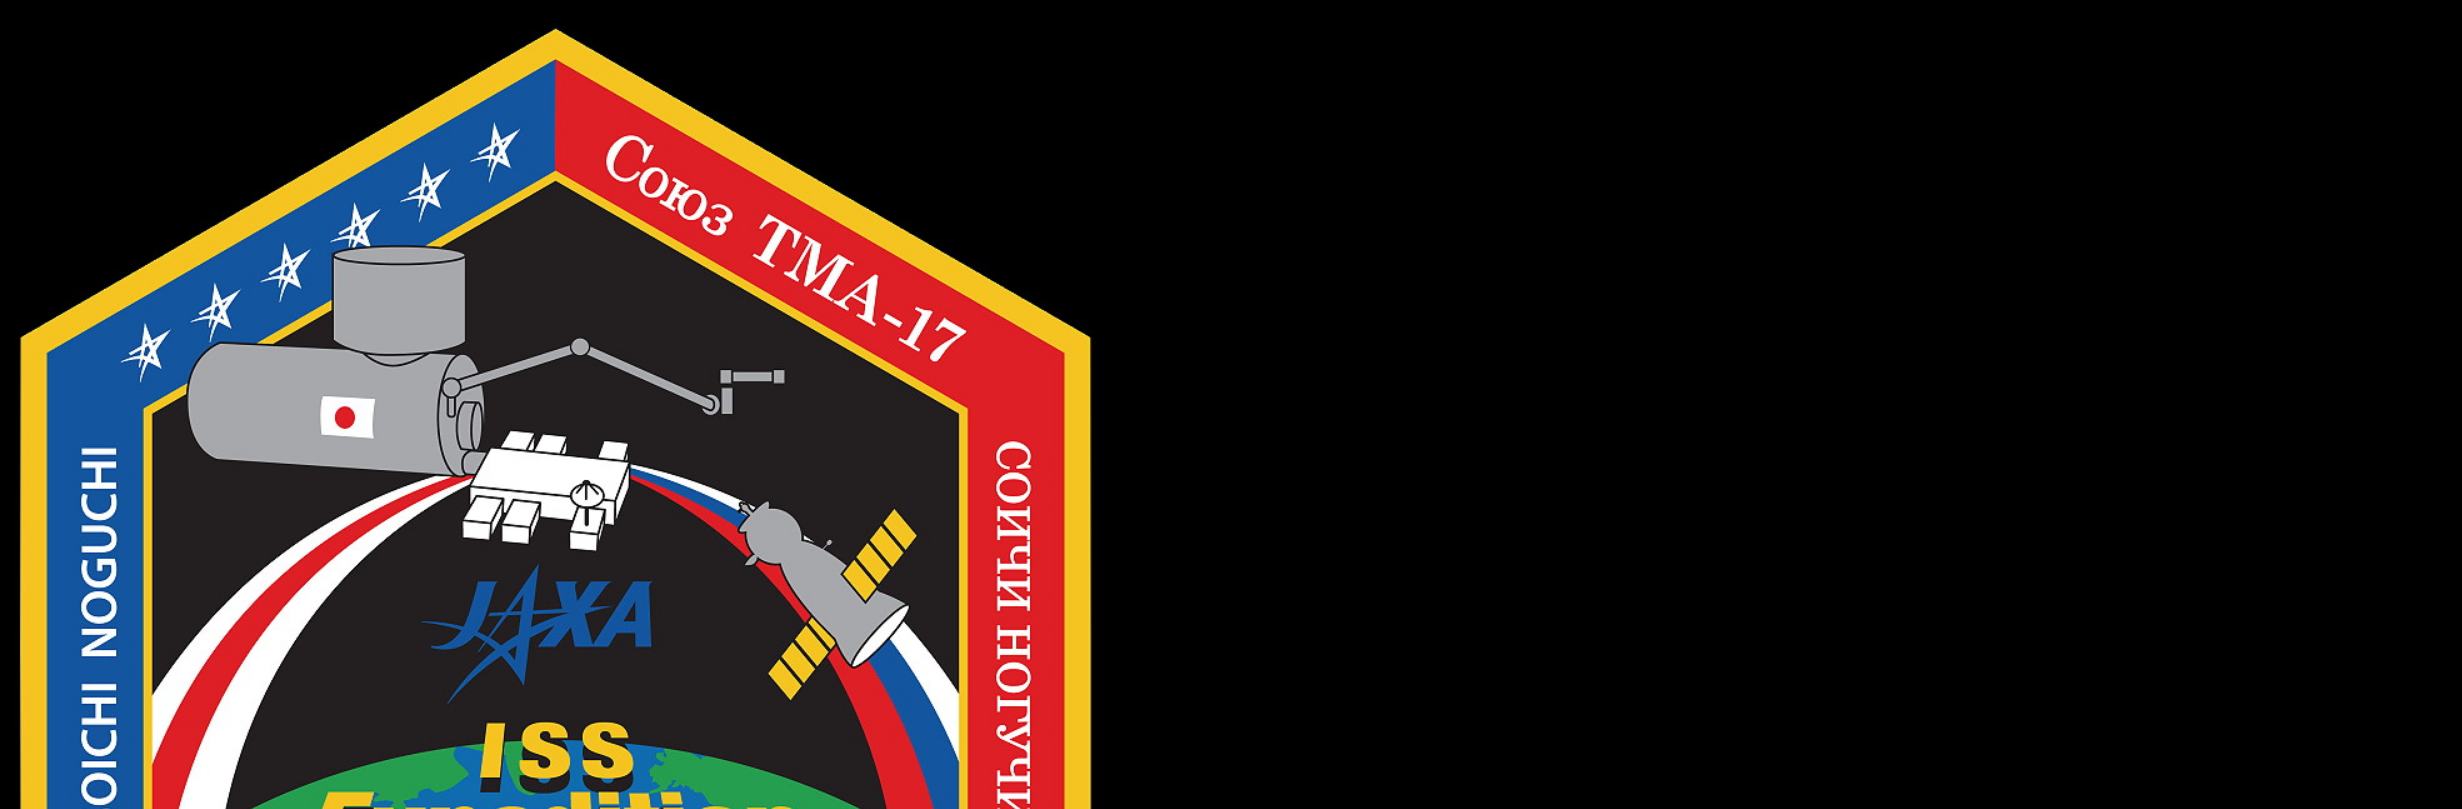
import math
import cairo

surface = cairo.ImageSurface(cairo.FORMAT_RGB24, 2462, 809)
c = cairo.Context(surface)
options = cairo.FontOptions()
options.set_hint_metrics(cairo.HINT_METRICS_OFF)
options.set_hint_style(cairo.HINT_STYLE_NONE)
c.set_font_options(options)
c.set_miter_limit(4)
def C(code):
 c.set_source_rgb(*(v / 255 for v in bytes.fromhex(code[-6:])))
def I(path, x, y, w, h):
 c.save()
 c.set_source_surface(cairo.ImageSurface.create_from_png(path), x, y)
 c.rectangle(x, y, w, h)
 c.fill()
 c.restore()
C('000000')
c.paint()
I('1.png',13,25,1084,784)
surface.write_to_png('o.png')
